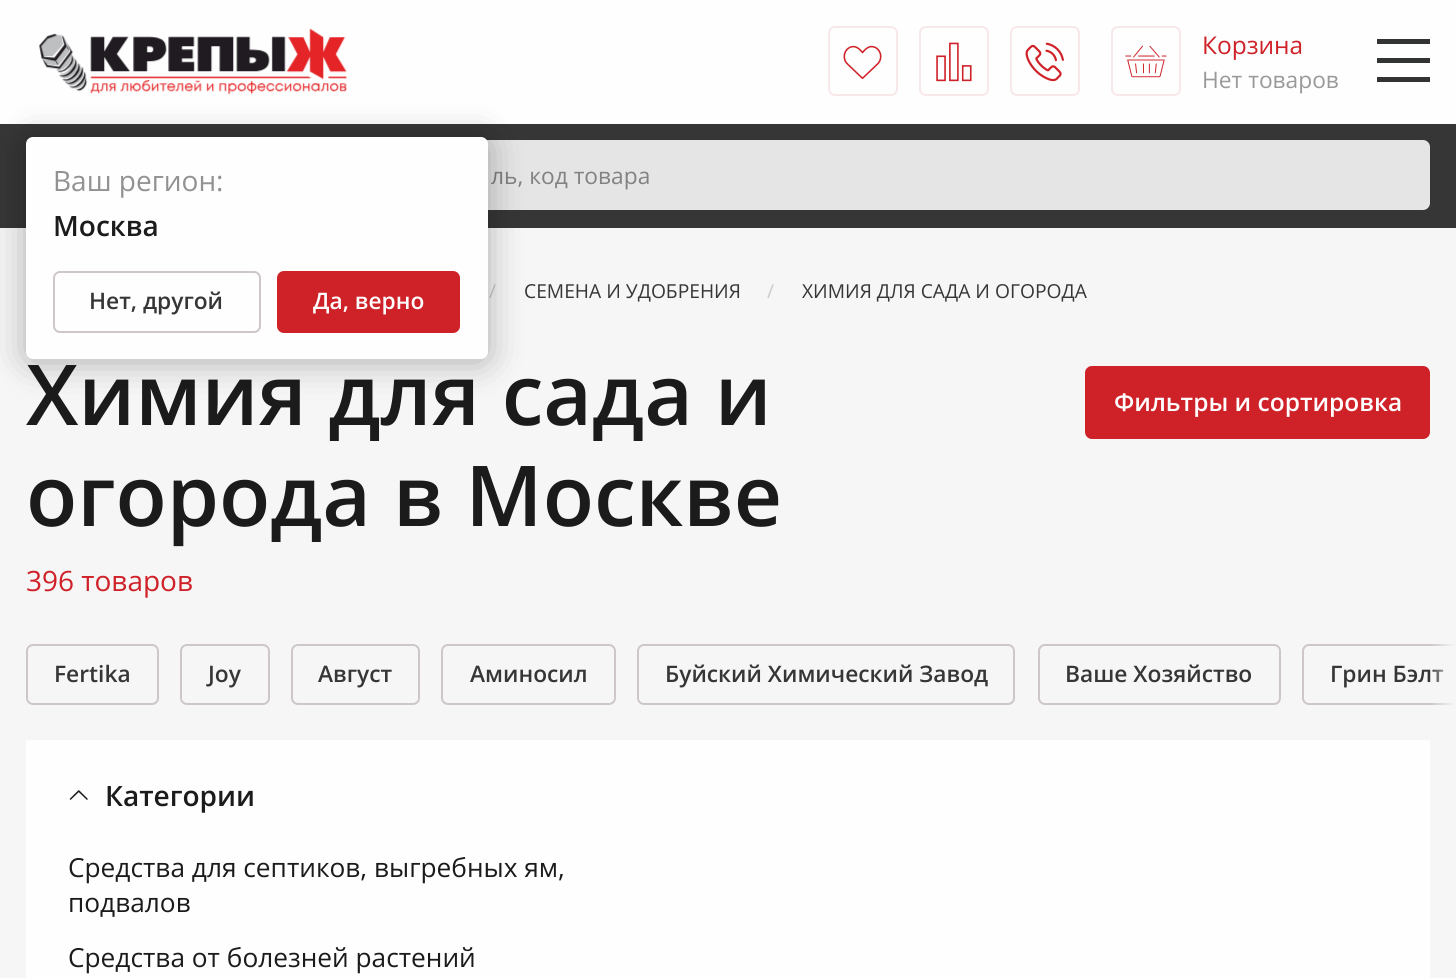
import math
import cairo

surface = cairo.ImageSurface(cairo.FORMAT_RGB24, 1456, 978)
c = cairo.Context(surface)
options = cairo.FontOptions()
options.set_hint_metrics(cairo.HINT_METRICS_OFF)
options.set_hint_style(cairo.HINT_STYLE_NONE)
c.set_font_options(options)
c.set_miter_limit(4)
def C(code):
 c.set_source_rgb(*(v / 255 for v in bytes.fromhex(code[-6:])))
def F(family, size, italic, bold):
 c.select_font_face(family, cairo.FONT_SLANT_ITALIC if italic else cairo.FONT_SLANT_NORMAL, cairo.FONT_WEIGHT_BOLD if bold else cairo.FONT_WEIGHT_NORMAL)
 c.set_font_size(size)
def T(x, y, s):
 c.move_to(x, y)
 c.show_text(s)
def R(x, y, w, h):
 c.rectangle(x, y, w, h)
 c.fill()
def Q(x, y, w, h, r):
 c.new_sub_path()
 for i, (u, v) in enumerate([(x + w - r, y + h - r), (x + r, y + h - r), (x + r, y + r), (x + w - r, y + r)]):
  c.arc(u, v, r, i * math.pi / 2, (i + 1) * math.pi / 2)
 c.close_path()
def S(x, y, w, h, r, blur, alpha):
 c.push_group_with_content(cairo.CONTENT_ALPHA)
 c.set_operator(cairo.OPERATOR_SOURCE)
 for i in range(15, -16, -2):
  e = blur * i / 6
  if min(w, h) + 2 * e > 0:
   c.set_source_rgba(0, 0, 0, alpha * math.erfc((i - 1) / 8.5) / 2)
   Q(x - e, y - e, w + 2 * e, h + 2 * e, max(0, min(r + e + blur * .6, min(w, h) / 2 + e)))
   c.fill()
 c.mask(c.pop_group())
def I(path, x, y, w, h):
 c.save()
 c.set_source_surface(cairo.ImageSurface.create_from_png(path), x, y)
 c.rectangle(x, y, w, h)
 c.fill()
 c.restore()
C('f6f6f6')
c.paint()
C('fefefe')
R(0,0,1456,124)
I('1.png',39,28,309,67)
Q(829,27,68,68,6)
C('f9e8e9')
c.stroke()
I('2.png',843,45,39,35)
Q(920,27,68,68,6)
c.stroke()
I('3.png',936,42,36,40)
Q(1011,27,68,68,6)
c.stroke()
I('4.png',1025,42,39,40)
Q(1112,27,68,68,6)
c.stroke()
I('5.png',1125,45,42,33)
F('Open Sans',24.5,0,0)
C('cf2128')
T(1202,54,'Корзина')
F('Open Sans',22.75,0,0)
C('999999')
T(1202,88,'Нет товаров')
C('323333')
R(1377,77,53,5)
R(1377,58,53,5)
R(1377,39,53,5)
C('363636')
R(0,124,1456,104)
C('e5e5e5')
Q(26,140,1404,70,7)
c.fill()
C('828282')
T(491,184,'ль, код товара')
F('Open Sans',19.25,0,0)
C('cacaca')
T(489,298,'/')
C('363636')
T(524,298,'СЕМЕНА И УДОБРЕНИЯ')
C('cacaca')
T(767,298,'/')
C('363636')
T(802,298,'ХИМИЯ ДЛЯ САДА И ОГОРОДА')
F('Open Sans SemiBold',84,0,0)
C('1b1b1b')
T(26,425,'Химия для сада и')
T(26,526,'огорода в Москве')
F('Open Sans',28,0,0)
C('cf2128')
T(26,591,'396 товаров')
Q(1086,367,343,71,6)
c.fill_preserve()
c.stroke()
F('Open Sans SemiBold',24.5,0,0)
C('fefefe')
T(1114,411,'Фильтры и сортировка')
Q(27,645,131,59,6)
C('cec7c7')
c.stroke()
F('Open Sans SemiBold',22.75,0,0)
C('363636')
T(54,682,'Fertika')
Q(181,645,88,59,6)
C('cec7c7')
c.stroke()
C('363636')
T(208,682,'Joy')
Q(292,645,127,59,6)
C('cec7c7')
c.stroke()
C('363636')
T(318,682,'Август')
Q(442,645,173,59,6)
C('cec7c7')
c.stroke()
C('363636')
T(470,682,'Аминосил')
Q(638,645,376,59,6)
C('cec7c7')
c.stroke()
C('363636')
T(665,682,'Буйский Химический Завод')
Q(1039,645,241,59,6)
C('cec7c7')
c.stroke()
C('363636')
T(1065,682,'Ваше Хозяйство')
Q(1303,645,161,59,6)
C('cec7c7')
c.stroke()
C('363636')
T(1330,682,'Грин Бэлт')
gradient = cairo.LinearGradient(1456,679,1430,679)
gradient.add_color_stop_rgba(0,0.965,0.965,0.965,1)
gradient.add_color_stop_rgba(1,0.965,0.965,0.965,0)
c.set_source(gradient)
R(1432,644,24,61)
C('fefefe')
R(26,740,1404,238)
I('6.png',69,790,19,10)
F('Open Sans SemiBold',28,0,0)
C('1b1b1b')
T(105,806,'Категории')
F('Open Sans',26.25,0,0)
T(68,877,'Средства для септиков, выгребных ям,')
T(68,912,'подвалов')
T(68,967,'Средства от болезней растений')
C('000000')
S(26,140,462,222,7,17.5,.3)
C('fefefe')
Q(26,137,462,222,7)
c.fill()
F('Open Sans',28,0,0)
C('929292')
T(53,191,'Ваш регион:')
F('Open Sans SemiBold',28,0,0)
C('1b1b1b')
T(53,236,'Москва')
Q(54,272,206,60,6)
C('cec7c7')
c.stroke()
F('Open Sans SemiBold',22.75,0,0)
C('363636')
T(89,309,'Нет, другой')
C('cf2128')
Q(278,272,181,60,6)
c.fill_preserve()
c.stroke()
C('fefefe')
T(313,309,'Да, верно')
surface.write_to_png('o.png')
